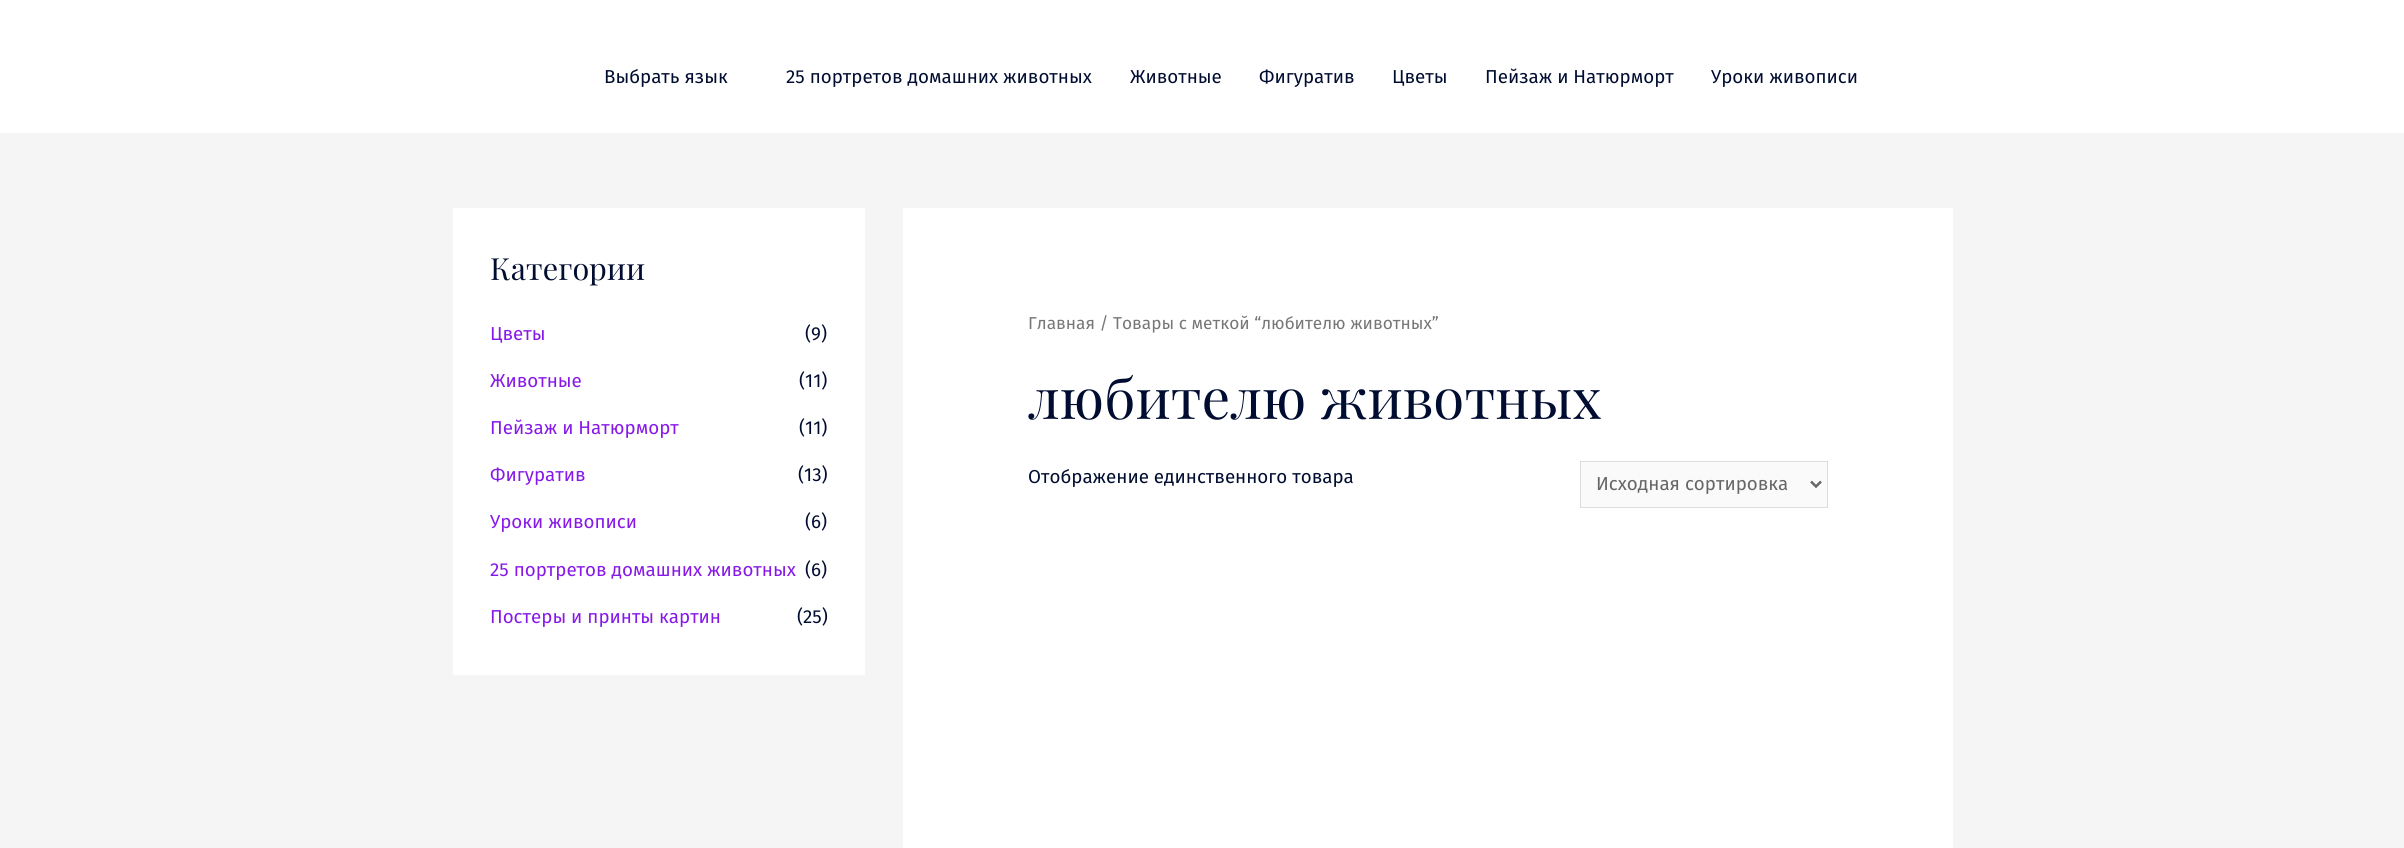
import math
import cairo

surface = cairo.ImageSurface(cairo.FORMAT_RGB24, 2404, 848)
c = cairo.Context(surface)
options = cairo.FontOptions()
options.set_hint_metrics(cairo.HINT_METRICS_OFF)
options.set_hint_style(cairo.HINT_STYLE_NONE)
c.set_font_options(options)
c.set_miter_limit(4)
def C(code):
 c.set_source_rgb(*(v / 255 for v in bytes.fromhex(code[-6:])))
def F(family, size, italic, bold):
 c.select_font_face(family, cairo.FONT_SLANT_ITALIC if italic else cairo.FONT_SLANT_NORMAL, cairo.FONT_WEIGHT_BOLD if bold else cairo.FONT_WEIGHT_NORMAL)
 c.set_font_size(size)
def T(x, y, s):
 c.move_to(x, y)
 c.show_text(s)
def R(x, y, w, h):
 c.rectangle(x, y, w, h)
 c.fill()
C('f5f5f5')
c.paint()
C('ffffff')
R(0,0,2404,133)
F('Fira Sans',18.75,0,0)
C('000c30')
T(604,83,'Выбрать язык')
T(786,83,'25 портретов домашних животных')
T(1130,83,'Животные')
T(1259,83,'Фигуратив')
T(1392,83,'Цветы')
T(1485,83,'Пейзаж и Натюрморт')
T(1711,83,'Уроки живописи')
C('ffffff')
R(453,208,412,467)
F('Playfair Display',30.5,0,0)
C('000c30')
T(490,280,'Категории')
F('Fira Sans',18.75,0,0)
C('8719e8')
T(490,340,'Цветы')
C('000c30')
T(805,340,'(9)')
C('8719e8')
T(490,387,'Животные')
C('000c30')
T(799,387,'(11)')
C('8719e8')
T(490,434,'Пейзаж и Натюрморт')
C('000c30')
T(799,434,'(11)')
C('8719e8')
T(490,481,'Фигуратив')
C('000c30')
T(798,481,'(13)')
C('8719e8')
T(490,528,'Уроки живописи')
C('000c30')
T(805,528,'(6)')
C('8719e8')
T(490,576,'25 портретов домашних животных')
C('000c30')
T(805,576,'(6)')
C('8719e8')
T(490,623,'Постеры и принты картин')
C('000c30')
T(797,623,'(25)')
C('ffffff')
R(903,208,1050,640)
F('Fira Sans',17.25,0,0)
C('777777')
T(1028,329,'Главная / Товары с меткой “любителю животных”')
F('Playfair Display',56.25,0,0)
C('000c30')
T(1028,419,'любителю животных')
F('Fira Sans',18.75,0,0)
T(1028,483,'Отображение единственного товара')
C('fafafa')
c.rectangle(1580.5,461.5,247,46)
c.fill_preserve()
C('dddddd')
c.set_line_width(1)
c.stroke()
c.new_path()
c.move_to(1811,481.5)
c.line_to(1816,486.5)
c.line_to(1821,481.5)
C('666666')
c.set_line_width(2.5)
c.stroke()
T(1596,490,'Исходная сортировка')
surface.write_to_png('o.png')
